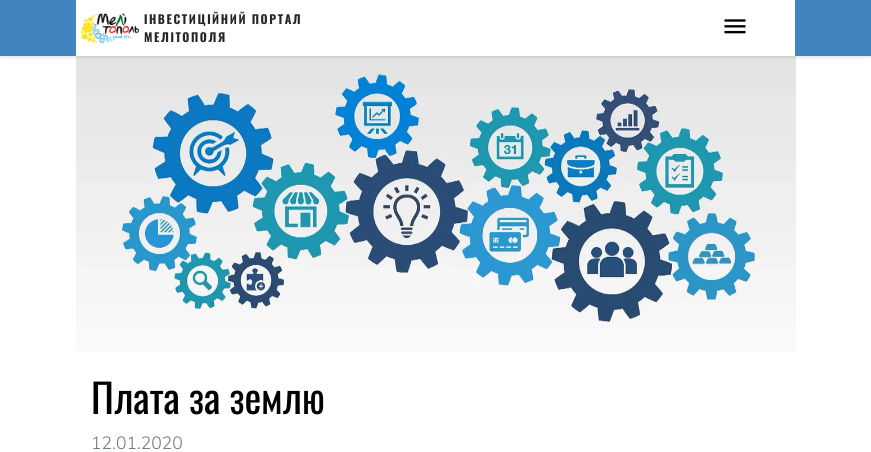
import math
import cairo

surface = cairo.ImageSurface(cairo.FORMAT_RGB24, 871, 452)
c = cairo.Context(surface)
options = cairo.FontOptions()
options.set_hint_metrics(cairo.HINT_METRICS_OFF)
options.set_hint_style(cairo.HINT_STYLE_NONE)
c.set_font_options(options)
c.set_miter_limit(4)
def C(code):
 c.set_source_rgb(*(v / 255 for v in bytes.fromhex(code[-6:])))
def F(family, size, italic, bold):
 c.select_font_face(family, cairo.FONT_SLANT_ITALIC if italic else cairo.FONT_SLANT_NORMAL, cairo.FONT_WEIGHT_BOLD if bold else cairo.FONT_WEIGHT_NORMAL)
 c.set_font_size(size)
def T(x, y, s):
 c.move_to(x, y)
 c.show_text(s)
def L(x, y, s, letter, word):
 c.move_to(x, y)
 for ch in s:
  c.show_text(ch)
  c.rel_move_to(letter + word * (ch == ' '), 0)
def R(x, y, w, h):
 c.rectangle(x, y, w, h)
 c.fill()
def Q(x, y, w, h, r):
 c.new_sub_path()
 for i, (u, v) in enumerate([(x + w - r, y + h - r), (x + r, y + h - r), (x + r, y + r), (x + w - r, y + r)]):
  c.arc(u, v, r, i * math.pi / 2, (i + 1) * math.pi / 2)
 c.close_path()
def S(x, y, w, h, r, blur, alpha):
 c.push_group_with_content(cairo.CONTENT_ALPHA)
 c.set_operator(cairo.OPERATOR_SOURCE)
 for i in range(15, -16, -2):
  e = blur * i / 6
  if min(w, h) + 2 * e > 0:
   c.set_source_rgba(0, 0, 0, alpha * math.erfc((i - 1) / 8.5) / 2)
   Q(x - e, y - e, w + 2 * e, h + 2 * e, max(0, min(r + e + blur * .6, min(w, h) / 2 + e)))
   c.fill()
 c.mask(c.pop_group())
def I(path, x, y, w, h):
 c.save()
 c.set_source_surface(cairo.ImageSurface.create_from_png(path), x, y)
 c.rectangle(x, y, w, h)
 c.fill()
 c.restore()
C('ffffff')
c.paint()
I('3.png',76,56,720,296)
C('000000')
S(0,0,871,56,0,2.5,.2)
C('4085bf')
R(0,0,871,56)
C('ffffff')
R(76,0,719,56)
I('1.png',80,13,59,30)
F('Oswald',12,0,1)
C('25262a')
L(144,24,'ІНВЕСТИЦІЙНИЙ ПОРТАЛ',1.6,0)
L(144,42,'МЕЛІТОПОЛЯ',1.6,0)
I('2.png',724,19,22,15)
F('Oswald',40,0,0)
C('000000')
T(91,414,'Плата за землю')
F('Muli Light',17.5,0,0)
C('6c757d')
T(91,449,'12.01.2020')
surface.write_to_png('o.png')
